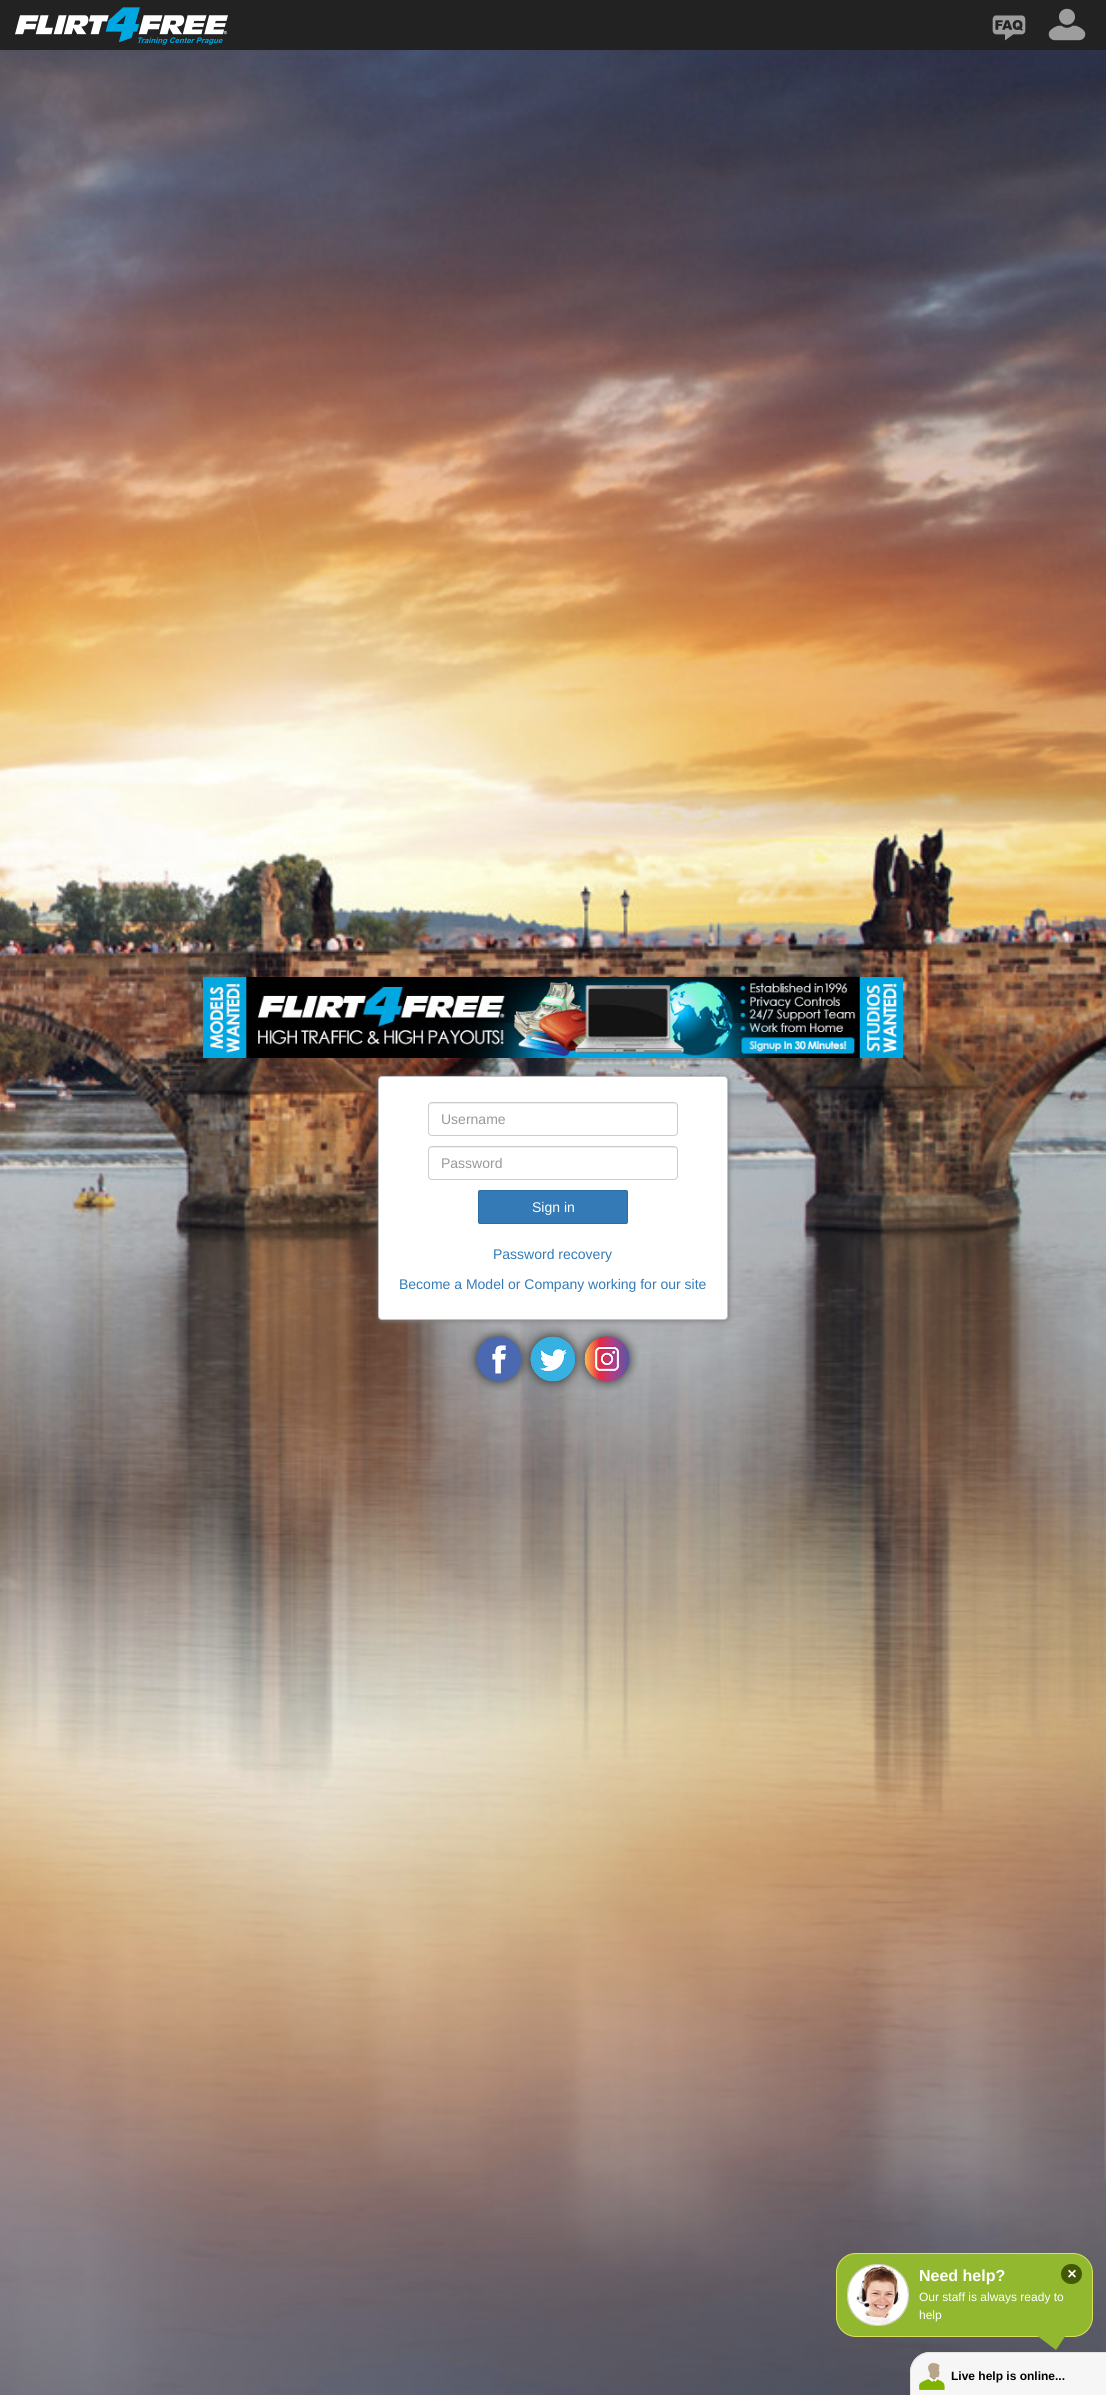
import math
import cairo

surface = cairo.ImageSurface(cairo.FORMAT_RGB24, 1106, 2395)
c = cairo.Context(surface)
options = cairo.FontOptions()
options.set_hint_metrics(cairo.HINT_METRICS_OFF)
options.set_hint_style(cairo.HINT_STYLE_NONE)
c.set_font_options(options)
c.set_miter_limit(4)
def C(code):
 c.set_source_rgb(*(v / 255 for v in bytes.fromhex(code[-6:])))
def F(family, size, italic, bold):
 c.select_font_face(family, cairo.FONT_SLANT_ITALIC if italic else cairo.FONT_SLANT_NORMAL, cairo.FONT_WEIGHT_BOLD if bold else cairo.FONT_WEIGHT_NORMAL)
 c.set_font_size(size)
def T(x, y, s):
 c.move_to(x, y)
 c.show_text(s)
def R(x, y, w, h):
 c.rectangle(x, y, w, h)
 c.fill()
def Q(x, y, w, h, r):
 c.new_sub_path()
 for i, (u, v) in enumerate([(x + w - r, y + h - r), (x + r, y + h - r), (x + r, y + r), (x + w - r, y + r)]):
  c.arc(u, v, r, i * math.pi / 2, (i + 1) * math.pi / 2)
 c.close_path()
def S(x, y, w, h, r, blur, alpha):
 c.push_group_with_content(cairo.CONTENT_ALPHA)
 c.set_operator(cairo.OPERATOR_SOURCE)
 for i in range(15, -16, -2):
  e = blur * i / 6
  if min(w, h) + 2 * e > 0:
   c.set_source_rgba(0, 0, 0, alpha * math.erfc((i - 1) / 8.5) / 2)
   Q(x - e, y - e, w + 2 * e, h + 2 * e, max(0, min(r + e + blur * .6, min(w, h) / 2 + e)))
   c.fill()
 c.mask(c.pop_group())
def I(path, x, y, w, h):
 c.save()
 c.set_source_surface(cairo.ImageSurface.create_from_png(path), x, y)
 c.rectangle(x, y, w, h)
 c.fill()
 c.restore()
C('ffffff')
c.paint()
C('222222')
R(0,0,1106,50)
I('1.png',15,7,213,38)
I('2.png',992,15,34,26)
I('3.png',1048,8,38,33)
I('4.png',0,50,1106,2345)
C('808080')
S(379,1077,350,244,4,2.5,1)
C('ffffff')
Q(378.5,1076.5,349,243,3.5)
c.fill_preserve()
C('c1c1c1')
c.set_line_width(1)
c.stroke()
I('5.png',203,977,700,81)
C('ececec')
c.new_path()
c.move_to(432,1104)
c.line_to(674,1104)
c.curve_to(676,1104,677,1105,677,1107)
c.curve_to(677,1105,676,1103,674,1103)
c.line_to(432,1103)
c.curve_to(430,1103,429,1105,429,1107)
c.curve_to(429,1105,430,1104,432,1104)
c.close_path()
c.fill()
Q(428.5,1102.5,249,33,3.5)
C('cccccc')
c.stroke()
F('Liberation Sans',14,0,0)
C('999999')
T(441,1124,'Username')
C('ececec')
c.new_path()
c.move_to(432,1148)
c.line_to(674,1148)
c.curve_to(676,1148,677,1149,677,1151)
c.curve_to(677,1149,676,1147,674,1147)
c.line_to(432,1147)
c.curve_to(430,1147,429,1149,429,1151)
c.curve_to(429,1149,430,1148,432,1148)
c.close_path()
c.fill()
Q(428.5,1146.5,249,33,3.5)
C('cccccc')
c.stroke()
C('999999')
T(441,1168,'Password')
C('337ab7')
Q(478.5,1190.5,149,33,1.5)
c.fill_preserve()
C('2e6da4')
c.stroke()
C('ffffff')
T(532,1212,'Sign in')
C('337ab7')
T(493,1259,'Password recovery')
T(399,1289,'Become a Model or Company working for our site')
I('6.png',467,1327,64,64)
I('7.png',522,1327,63,64)
I('8.png',574,1327,65,64)
C('f6f6f6')
c.new_path()
c.move_to(930,2352)
c.line_to(1106,2352)
c.line_to(1106,2395)
c.line_to(910,2395)
c.line_to(910,2372)
c.curve_to(910,2361,919,2352,930,2352)
c.close_path()
c.fill()
C('e3e3e3')
c.set_fill_rule(cairo.FILL_RULE_EVEN_ODD)
c.new_path()
c.move_to(930,2352)
c.line_to(1106,2352)
c.line_to(1106,2395)
c.line_to(910,2395)
c.line_to(910,2372)
c.curve_to(910,2361,919,2352,930,2352)
c.close_path()
c.move_to(930,2353)
c.line_to(1106,2353)
c.line_to(1106,2395)
c.line_to(911,2395)
c.line_to(911,2372)
c.curve_to(911,2362,920,2353,930,2353)
c.close_path()
c.fill()
C('92b830')
Q(836.5,2253.5,256,83,19.5)
c.fill_preserve()
C('dbe257')
c.stroke()
Q(847.5,2264.5,61,61,29.5)
C('d0d0d0')
c.stroke()
I('9.png',848,2265,60,60)
F('Liberation Sans',16,0,1)
C('ffffff')
T(919,2281,'Need help?')
C('435a05')
Q(1061,2264,21,20,10)
c.fill()
F('Liberation Sans',16,1,1)
C('ffffff')
T(1067,2279,'×')
F('Liberation Sans',12,0,0)
T(919,2301,'Our staff is always ready to')
T(919,2319,'help')
C('92b830')
c.set_fill_rule(cairo.FILL_RULE_WINDING)
c.new_path()
c.move_to(1036,2335)
c.line_to(1066,2335)
c.line_to(1056,2350)
c.close_path()
c.fill()
I('10.png',919,2363,26,27)
F('Liberation Sans',12,0,1)
C('000000')
T(951,2380,'Live help is online...')
surface.write_to_png('o.png')
